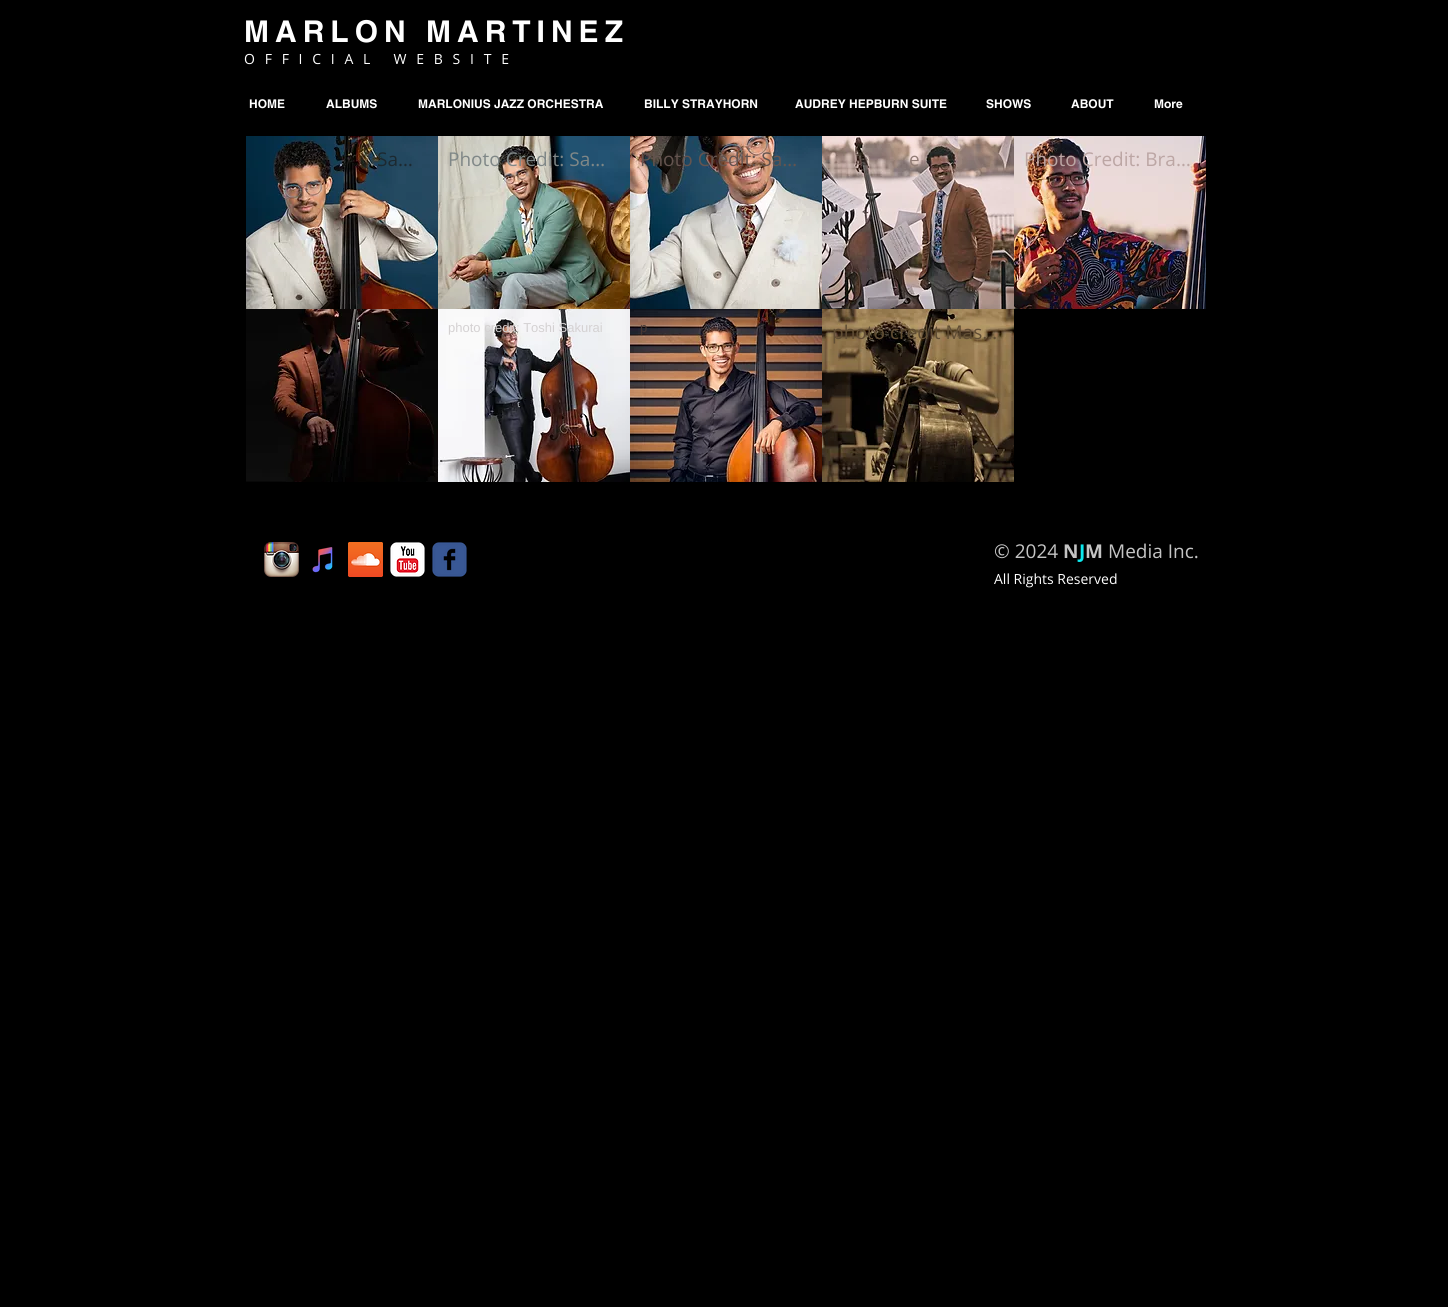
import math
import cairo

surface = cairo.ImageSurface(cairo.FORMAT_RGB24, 1448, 1307)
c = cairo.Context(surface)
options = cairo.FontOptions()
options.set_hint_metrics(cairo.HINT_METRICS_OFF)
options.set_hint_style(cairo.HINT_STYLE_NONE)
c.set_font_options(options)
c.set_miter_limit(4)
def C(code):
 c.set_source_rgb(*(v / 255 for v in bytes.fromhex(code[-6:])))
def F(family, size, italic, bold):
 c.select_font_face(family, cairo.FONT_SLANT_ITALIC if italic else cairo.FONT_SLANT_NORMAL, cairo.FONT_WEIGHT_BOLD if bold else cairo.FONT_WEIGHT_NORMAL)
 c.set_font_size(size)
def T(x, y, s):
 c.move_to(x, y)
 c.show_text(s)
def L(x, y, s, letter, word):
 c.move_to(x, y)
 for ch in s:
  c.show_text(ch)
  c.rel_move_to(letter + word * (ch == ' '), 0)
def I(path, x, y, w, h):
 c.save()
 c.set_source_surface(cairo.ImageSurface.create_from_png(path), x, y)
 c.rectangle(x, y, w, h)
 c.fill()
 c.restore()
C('000000')
c.paint()
F('helvetica',30,0,1)
C('ffffff')
L(244,42,'MARLON MARTINEZ',6,0)
F('Open Sans',14,0,0)
L(244,64,'OFFICIAL WEBSITE',9.75,0)
F('helvetica',12,0,1)
T(249,108,'HOME')
T(326,108,'ALBUMS')
T(418,108,'MARLONIUS JAZZ ORCHESTRA')
T(644,108,'BILLY STRAYHORN')
T(795,108,'AUDREY HEPBURN SUITE')
T(986,108,'SHOWS')
T(1071,108,'ABOUT')
T(1154,108,'More')
I('1.png',246,136,192,173)
F('Open Sans',19,0,0)
C('1c2930')
T(377,166,'Sa…')
I('2.png',438,136,192,173)
C('7f8787')
T(448,166,'Photo Credit: Sa…')
I('3.png',630,136,192,173)
C('64544f')
T(640,166,'Photo Credit: Sa…')
I('4.png',822,136,192,173)
C('937e77')
T(909,166,'e')
I('5.png',1014,136,192,173)
C('bca6a4')
T(1024,166,'Photo Credit: Bra…')
I('6.png',246,309,192,173)
C('161111')
T(356,339,'i')
I('7.png',438,309,192,173)
F('Liberation Sans',13,0,0)
C('d4d1d2')
T(448,332,'photo credit: Toshi Sakurai')
I('8.png',630,309,192,173)
C('463734')
T(640,332,'p')
I('9.png',822,309,192,173)
F('Open Sans',19,0,0)
C('614e34')
T(832,339,'photo credit Mas…')
I('10.png',264,542,35,35)
I('11.png',312,547,21,26)
I('12.png',348,542,35,35)
I('13.png',390,542,35,35)
I('14.png',432,542,35,35)
C('c4c4c4')
T(994,558,'© 2024')
F('Open Sans',19,0,1)
T(1063,558,'N')
C('0ceaef')
T(1079,558,'J')
C('c4c4c4')
T(1085,558,'M')
F('Open Sans',19,0,0)
T(1108,558,'Media Inc.')
F('Open Sans',14,0,0)
C('ffffff')
T(994,584,'All Rights Reserved')
surface.write_to_png('o.png')
